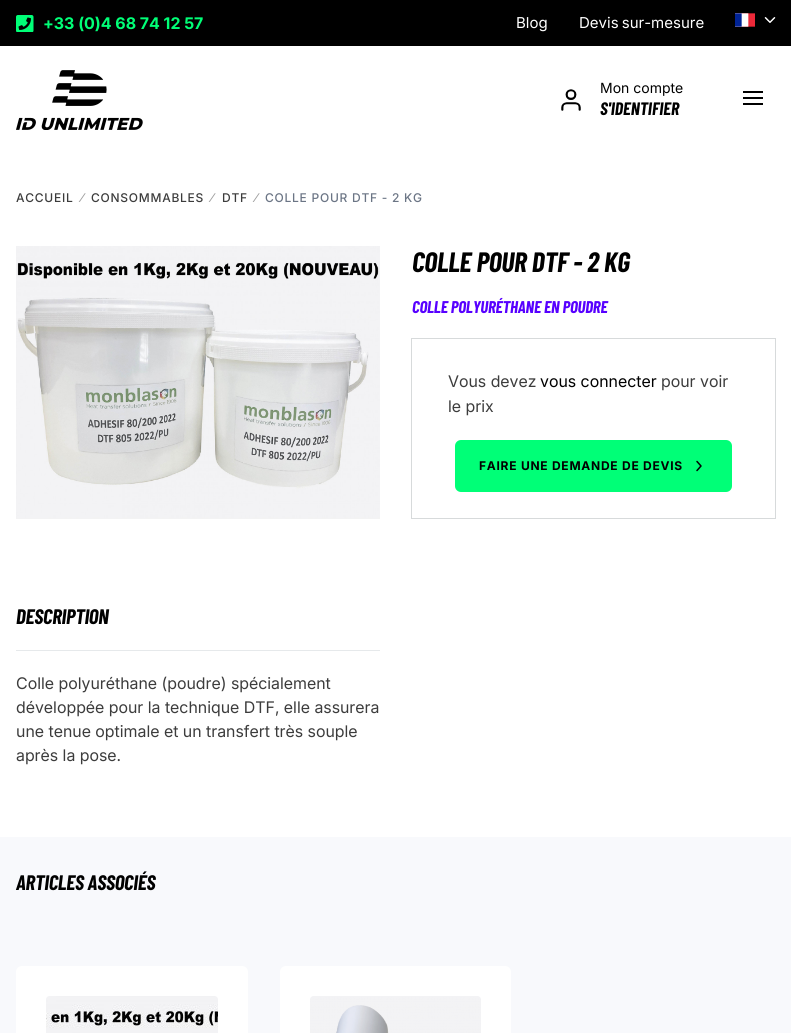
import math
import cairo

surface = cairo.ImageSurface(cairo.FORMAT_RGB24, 791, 1033)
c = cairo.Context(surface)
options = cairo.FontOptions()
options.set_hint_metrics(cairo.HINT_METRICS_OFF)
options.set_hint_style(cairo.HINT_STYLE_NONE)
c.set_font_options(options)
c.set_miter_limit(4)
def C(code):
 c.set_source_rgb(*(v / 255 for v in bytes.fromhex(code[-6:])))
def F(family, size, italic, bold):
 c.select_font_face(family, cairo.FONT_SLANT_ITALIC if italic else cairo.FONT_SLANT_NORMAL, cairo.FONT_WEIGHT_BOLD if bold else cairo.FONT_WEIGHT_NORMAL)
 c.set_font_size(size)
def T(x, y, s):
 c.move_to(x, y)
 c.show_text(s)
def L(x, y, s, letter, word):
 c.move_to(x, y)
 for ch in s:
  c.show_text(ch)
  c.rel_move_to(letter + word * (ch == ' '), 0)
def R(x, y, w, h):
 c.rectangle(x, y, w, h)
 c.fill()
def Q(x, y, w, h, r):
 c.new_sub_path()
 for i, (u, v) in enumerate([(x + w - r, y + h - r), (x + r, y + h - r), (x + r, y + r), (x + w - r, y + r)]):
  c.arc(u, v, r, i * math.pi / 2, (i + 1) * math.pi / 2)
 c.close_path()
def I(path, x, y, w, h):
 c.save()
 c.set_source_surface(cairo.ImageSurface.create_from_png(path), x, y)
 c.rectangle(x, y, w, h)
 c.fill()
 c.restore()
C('ffffff')
c.paint()
C('000000')
R(0,0,791,46)
I('1.png',16,15,18,17)
F('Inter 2',16,0,1)
C('00ff77')
T(43,29,'+33 (0)4 68 74 12 57')
F('Inter 2',15,0,0)
C('ffffff')
T(516,28,'Blog')
L(579,28,'Devis sur-mesure',0,-1)
I('2.png',735,13,20,14)
I('3.png',764,17,12,6)
I('4.png',16,70,127,60)
I('5.png',561,89,20,22)
F('Inter 2',14,0,0)
C('000000')
T(600,93,'Mon compte')
F('Barlow Condensed',18,1,1)
T(600,115,'S\'IDENTIFIER')
R(743,97,20,2)
R(743,91,20,2)
R(743,103,20,2)
F('Inter Medium',12,0,0)
C('3c3c3c')
L(16,202,'ACCUEIL',.75,0)
C('9e9e9e')
L(81,202,'⁄',.75,0)
C('3c3c3c')
L(91,202,'CONSOMMABLES',.75,0)
C('9e9e9e')
L(211,202,'⁄',.75,0)
C('3c3c3c')
L(222,202,'DTF',.75,0)
C('9e9e9e')
L(255,202,'⁄',.75,0)
C('6b7585')
L(265,202,'COLLE POUR DTF - 2 KG',.75,0)
I('6.png',16,246,364,273)
F('Barlow Condensed',28,1,1)
C('000000')
L(412,272,'COLLE POUR DTF - 2 KG',-.25,0)
F('Barlow Condensed',17,1,1)
C('5700ff')
L(412,313,'COLLE POLYURÉTHANE EN POUDRE',-.2,0)
c.rectangle(411.5,338.5,364,180)
C('d7dadb')
c.set_line_width(1)
c.stroke()
F('Inter',16,0,0)
C('3c3c3c')
T(448,387,'Vous devez')
C('000000')
T(540,387,'vous connecter')
C('3c3c3c')
T(661,387,'pour voir')
T(448,412,'le prix')
C('00ff77')
Q(455,440,277,52,6)
c.fill()
F('Inter',12,0,1)
C('000000')
L(479,470,'FAIRE UNE DEMANDE DE DEVIS',.75,0)
c.new_path()
c.move_to(697,470.5)
c.line_to(701,466)
c.line_to(697,461.5)
c.set_line_width(1.5)
c.set_line_cap(cairo.LINE_CAP_ROUND)
c.set_line_join(cairo.LINE_JOIN_ROUND)
c.stroke()
C('e6e9eb')
R(16,650,364,1)
F('Barlow Condensed',21,1,1)
C('000000')
L(16,624,'DESCRIPTION',-.25,0)
F('Inter',16,0,0)
C('3c3c3c')
T(16,689,'Colle polyuréthane (poudre) spécialement')
T(16,713,'développée pour la technique DTF, elle assurera')
T(16,737,'une tenue optimale et un transfert très souple')
T(16,761,'après la pose.')
C('f8f9fc')
R(0,837,791,196)
F('Barlow Condensed',21,1,1)
C('000000')
L(16,890,'ARTICLES ASSOCIÉS',-.25,0)
C('ffffff')
Q(16,966,232,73,6)
c.fill()
I('7.png',46,996,172,37)
Q(280,966,231,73,6)
c.fill()
I('8.png',310,996,171,37)
surface.write_to_png('o.png')
